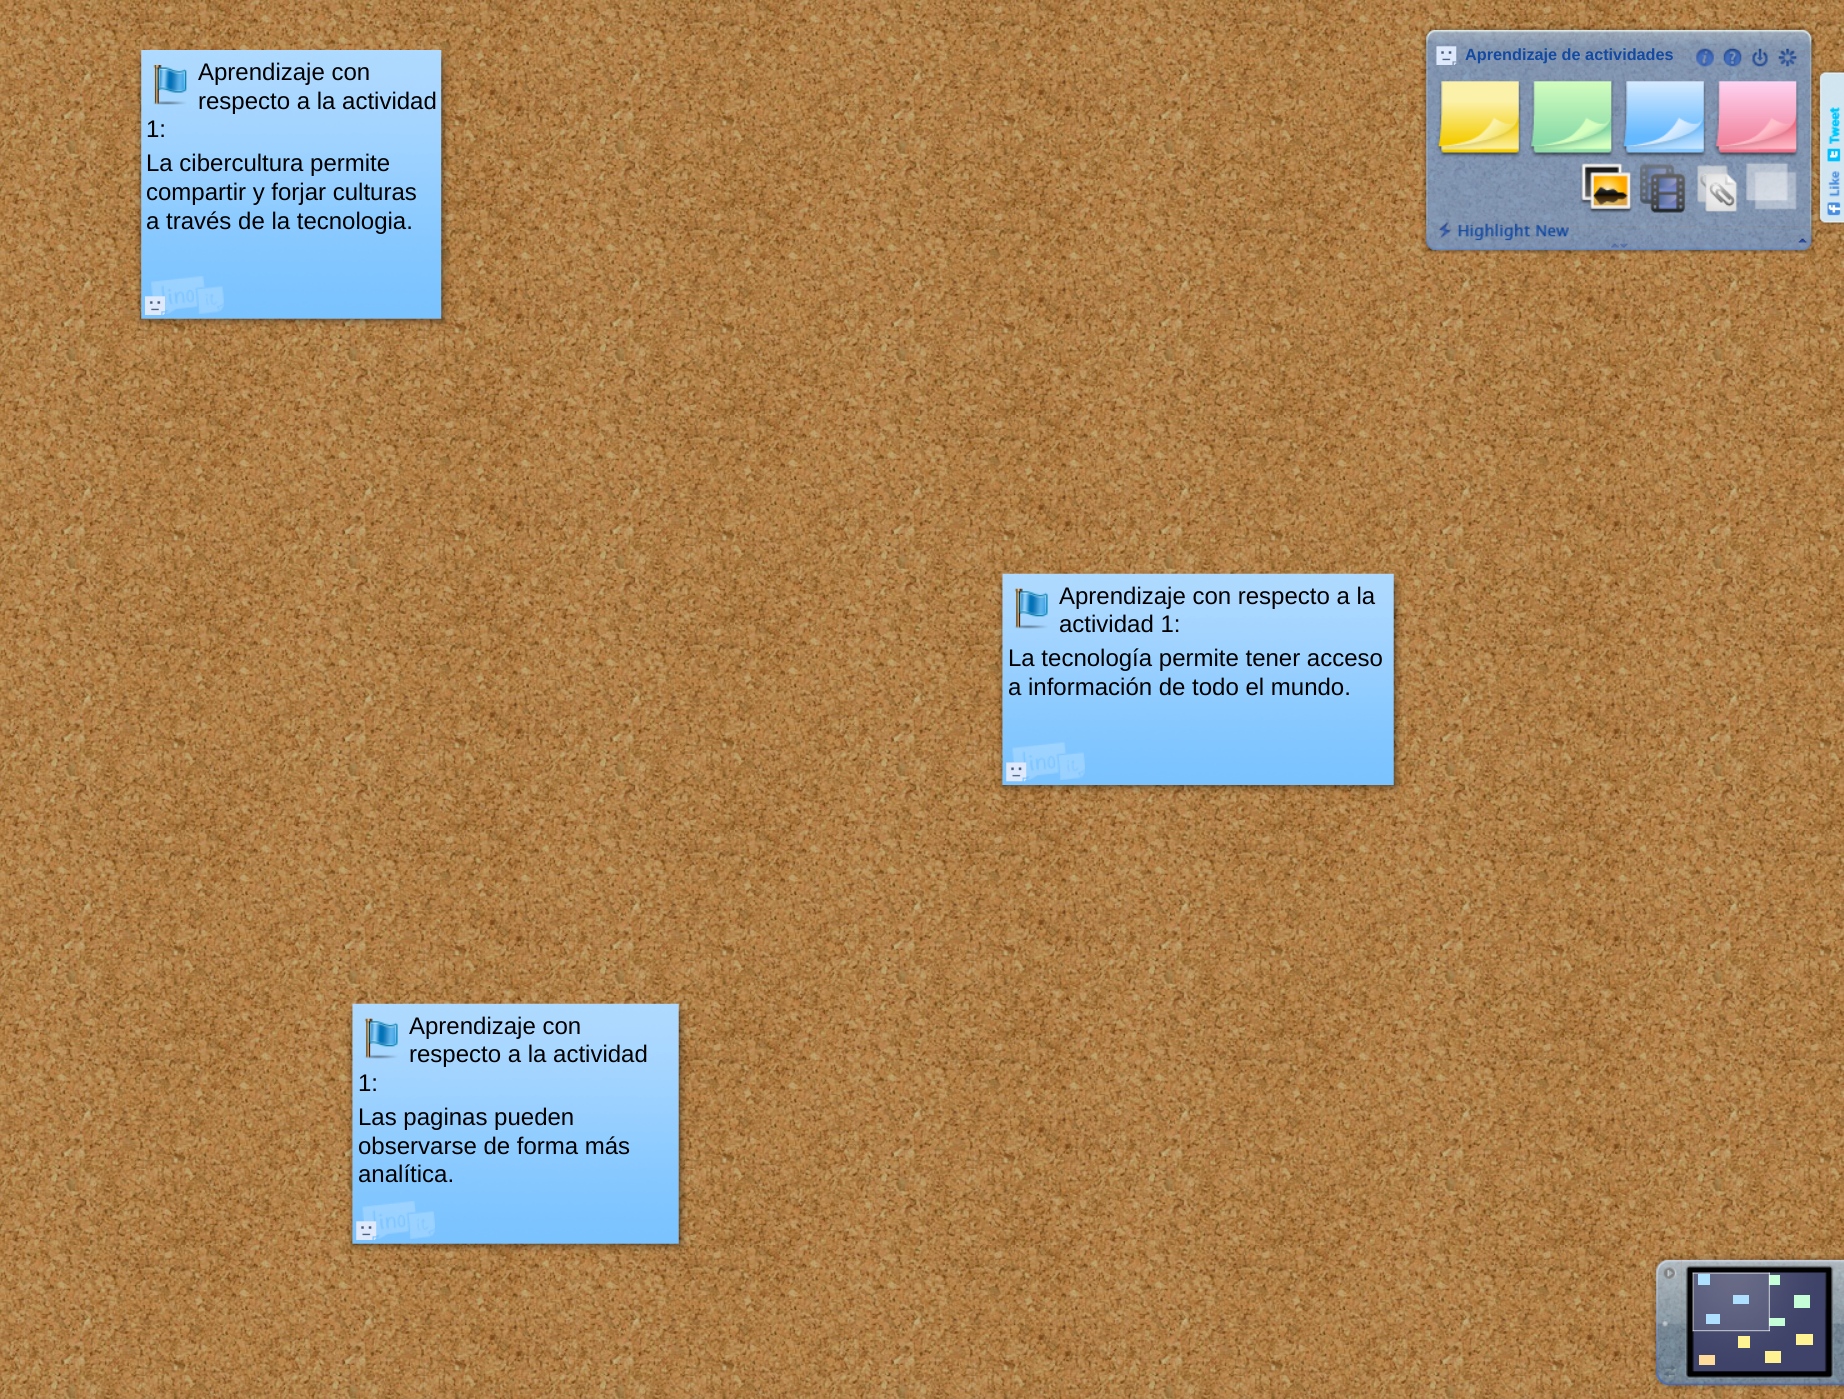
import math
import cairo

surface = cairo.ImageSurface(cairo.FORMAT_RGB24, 1844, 1399)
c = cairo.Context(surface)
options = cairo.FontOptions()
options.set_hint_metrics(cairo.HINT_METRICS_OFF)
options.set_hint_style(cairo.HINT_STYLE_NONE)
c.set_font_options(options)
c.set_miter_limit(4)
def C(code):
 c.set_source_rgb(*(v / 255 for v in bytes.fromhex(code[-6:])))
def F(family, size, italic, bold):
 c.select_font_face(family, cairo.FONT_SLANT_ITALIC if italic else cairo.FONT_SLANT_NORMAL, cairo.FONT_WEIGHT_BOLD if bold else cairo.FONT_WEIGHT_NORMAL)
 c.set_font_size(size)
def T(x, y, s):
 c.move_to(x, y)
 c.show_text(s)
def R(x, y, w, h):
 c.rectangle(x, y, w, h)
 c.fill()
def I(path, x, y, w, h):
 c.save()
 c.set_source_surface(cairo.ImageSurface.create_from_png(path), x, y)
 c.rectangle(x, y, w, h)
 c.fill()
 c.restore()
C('ffffff')
c.paint()
I('20.png',0,0,1844,1399)
I('1.png',1422,26,394,26)
I('2.png',1422,51,394,176)
I('3.png',1422,226,394,28)
I('4.png',1436,46,21,19)
F('Liberation Sans',16.25,0,1)
C('1349a0')
T(1465,60,'Aprendizaje de actividades')
I('5.png',1696,48,18,19)
I('6.png',1723,48,19,19)
I('7.png',1752,48,16,19)
I('8.png',1778,48,19,19)
I('9.png',1436,81,85,77)
I('10.png',1529,81,85,77)
I('11.png',1621,81,85,77)
I('12.png',1714,81,85,77)
I('13.png',1580,163,53,50)
I('14.png',1639,163,47,50)
I('15.png',1697,165,41,47)
I('16.png',1746,162,51,48)
I('17.png',1438,222,131,19)
I('18.png',1798,238,9,5)
I('19.png',1611,243,17,5)
I('21.png',136,52,6,8)
I('24.png',135,60,7,259)
I('26.png',135,318,7,9)
I('22.png',141,50,301,269)
I('23.png',441,52,9,8)
I('25.png',441,60,9,259)
I('28.png',441,318,9,9)
I('27.png',141,318,301,9)
F('Liberation Sans',24,0,0)
C('000000')
T(198,80,'Aprendizaje con')
T(198,109,'respecto a la actividad')
T(146,137,'1:')
I('29.png',153,65,34,40)
T(146,171,'La cibercultura permite')
T(146,200,'compartir y forjar culturas')
T(146,229,'a través de la tecnologia.')
I('31.png',151,276,73,38)
I('30.png',145,296,20,19)
I('32.png',997,576,6,8)
I('35.png',997,583,6,202)
I('33.png',1002,573,392,212)
I('34.png',1393,575,9,9)
I('36.png',1393,583,9,202)
I('37.png',997,785,6,8)
I('39.png',1393,785,9,9)
I('38.png',1002,785,392,8)
I('40.png',1014,588,34,41)
T(1059,604,'Aprendizaje con respecto a la')
T(1059,632,'actividad 1:')
T(1008,666,'La tecnología permite tener acceso')
T(1008,695,'a información de todo el mundo.')
I('42.png',1012,742,73,38)
I('41.png',1006,762,21,20)
I('43.png',347,1006,6,8)
I('46.png',347,1013,6,231)
I('48.png',347,1243,6,9)
I('44.png',352,1003,327,241)
I('45.png',678,1005,9,9)
I('47.png',678,1013,9,231)
I('50.png',678,1243,9,9)
I('49.png',352,1243,327,9)
T(409,1034,'Aprendizaje con')
T(409,1062,'respecto a la actividad')
T(358,1091,'1:')
I('51.png',364,1018,34,41)
T(358,1125,'Las paginas pueden')
T(358,1154,'observarse de forma más')
T(358,1182,'analítica.')
I('53.png',362,1201,73,38)
I('52.png',356,1221,21,19)
I('54.png',1816,68,28,159)
I('58.png',1681,1255,163,136)
I('55.png',1650,1255,32,136)
I('56.png',1663,1267,14,12)
I('57.png',1664,1365,13,13)
I('59.png',1685,1265,149,114)
C('a6dbff')
R(1698,1274,12,11)
C('c4ffd8')
R(1769,1275,11,10)
C('a6dbff')
R(1733,1295,16,9)
R(1706,1314,14,10)
C('c4ffd8')
R(1769,1318,16,8)
c.set_source_rgba(1,1,1,0.1)
R(1692,1272,78,60)
I('60.png',1692,1272,2,60)
I('61.png',1692,1272,78,2)
I('62.png',1768,1272,2,60)
I('63.png',1692,1330,78,2)
C('c4ffd8')
R(1794,1295,16,13)
C('fff293')
R(1738,1336,12,12)
R(1796,1334,17,11)
C('ffdb9b')
R(1699,1355,16,10)
C('fff293')
R(1765,1351,16,12)
surface.write_to_png('o.png')
